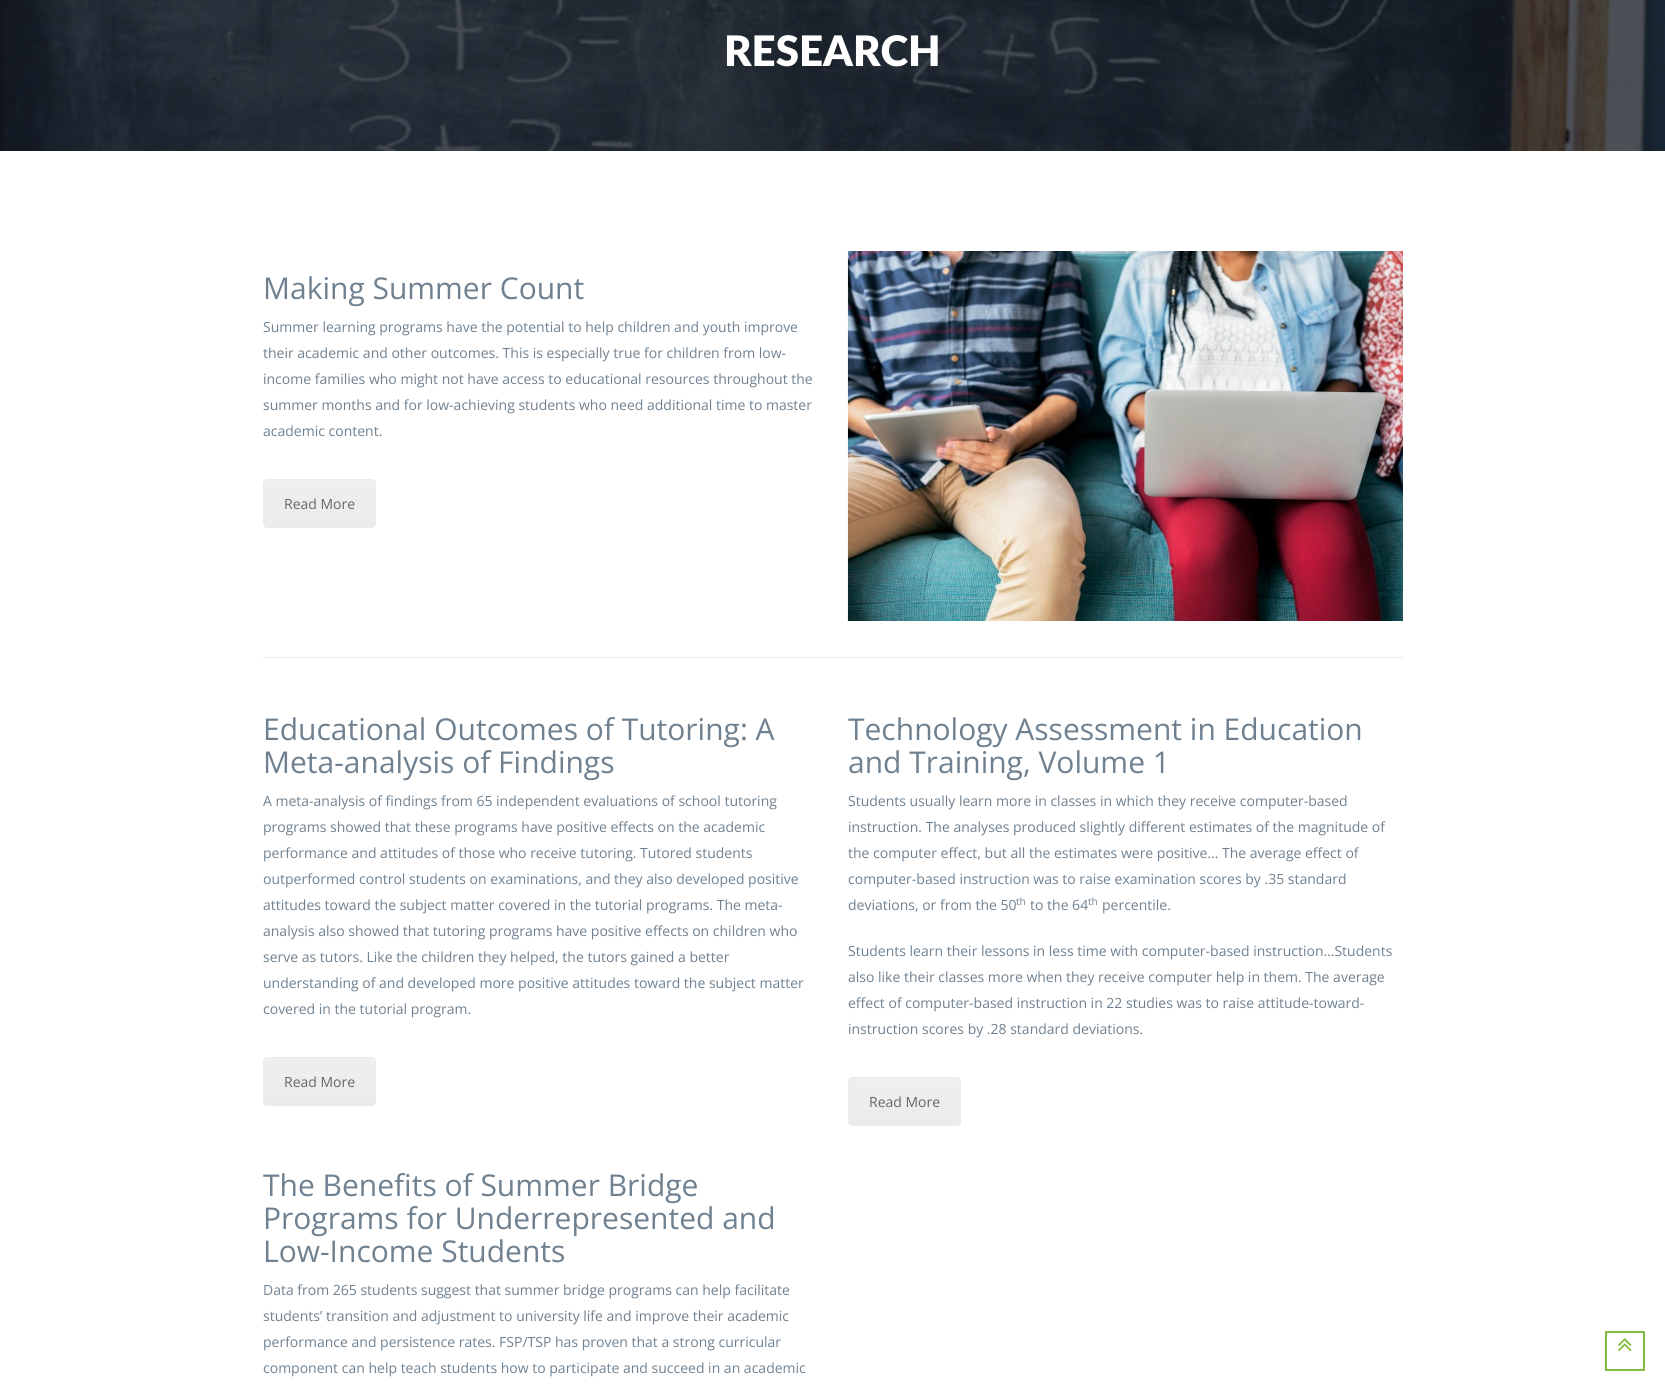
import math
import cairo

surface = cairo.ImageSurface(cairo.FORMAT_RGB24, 1665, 1391)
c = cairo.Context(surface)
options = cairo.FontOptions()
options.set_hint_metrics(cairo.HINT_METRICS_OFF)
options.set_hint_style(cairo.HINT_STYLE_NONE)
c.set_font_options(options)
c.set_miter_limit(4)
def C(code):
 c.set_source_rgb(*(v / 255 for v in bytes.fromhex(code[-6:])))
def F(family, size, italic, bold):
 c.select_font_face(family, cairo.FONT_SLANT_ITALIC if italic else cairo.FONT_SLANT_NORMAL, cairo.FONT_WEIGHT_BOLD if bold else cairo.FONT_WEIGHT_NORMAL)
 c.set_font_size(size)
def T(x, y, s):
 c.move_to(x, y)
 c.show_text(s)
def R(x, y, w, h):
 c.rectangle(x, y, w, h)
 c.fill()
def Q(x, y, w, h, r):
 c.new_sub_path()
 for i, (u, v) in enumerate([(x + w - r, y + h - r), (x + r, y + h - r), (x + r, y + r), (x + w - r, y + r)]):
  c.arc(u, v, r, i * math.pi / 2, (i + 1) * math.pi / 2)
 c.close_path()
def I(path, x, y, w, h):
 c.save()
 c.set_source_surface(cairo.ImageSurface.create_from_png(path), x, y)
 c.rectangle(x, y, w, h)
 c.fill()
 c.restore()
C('ffffff')
c.paint()
I('1.png',0,0,1665,151)
F('Lato Black',42,0,0)
C('ffffff')
T(724,66,'RESEARCH')
F('Open Sans',30,0,0)
C('6f8190')
T(263,299,'Making Summer Count')
F('Open Sans',14,0,0)
T(263,332,'Summer learning programs have the potential to help children and youth improve')
T(263,358,'their academic and other outcomes. This is especially true for children from low-')
T(263,384,'income families who might not have access to educational resources throughout the')
T(263,410,'summer months and for low-achieving students who need additional time to master')
T(263,436,'academic content.')
C('ebebeb')
Q(263,479,113,49,5)
c.fill()
c.save()
Q(263,479,113,49,5)
c.clip()
gradient = cairo.LinearGradient(320,480,320,527)
gradient.add_color_stop_rgba(0,1,1,1,.2)
gradient.add_color_stop_rgba(1,1,1,1,.01)
c.set_source(gradient)
R(263,480,113,44)
c.restore()
Q(263.5,479.5,112,48,4.5)
c.set_line_width(1)
c.stroke()
C('666666')
T(284,509,'Read More')
I('2.png',847,251,556,370)
C('ebebeb')
R(263,657,1140,1)
F('Open Sans',30,0,0)
C('6f8190')
T(263,740,'Educational Outcomes of Tutoring: A')
T(263,773,'Meta-analysis of Findings')
F('Open Sans',14,0,0)
T(263,806,'A meta-analysis of findings from 65 independent evaluations of school tutoring')
T(263,832,'programs showed that these programs have positive effects on the academic')
T(263,858,'performance and attitudes of those who receive tutoring. Tutored students')
T(263,884,'outperformed control students on examinations, and they also developed positive')
T(263,910,'attitudes toward the subject matter covered in the tutorial programs. The meta-')
T(263,936,'analysis also showed that tutoring programs have positive effects on children who')
T(263,962,'serve as tutors. Like the children they helped, the tutors gained a better')
T(263,988,'understanding of and developed more positive attitudes toward the subject matter')
T(263,1014,'covered in the tutorial program.')
C('ebebeb')
Q(263,1057,113,49,5)
c.fill()
c.save()
Q(263,1057,113,49,5)
c.clip()
gradient = cairo.LinearGradient(320,1058,320,1105)
gradient.add_color_stop_rgba(0,1,1,1,.2)
gradient.add_color_stop_rgba(1,1,1,1,.01)
c.set_source(gradient)
R(263,1058,113,44)
c.restore()
Q(263.5,1057.5,112,48,4.5)
c.stroke()
C('666666')
T(284,1087,'Read More')
F('Open Sans',30,0,0)
C('6f8190')
T(848,740,'Technology Assessment in Education')
T(848,773,'and Training, Volume 1')
F('Open Sans',14,0,0)
T(848,806,'Students usually learn more in classes in which they receive computer-based')
T(848,832,'instruction. The analyses produced slightly different estimates of the magnitude of')
T(848,858,'the computer effect, but all the estimates were positive… The average effect of')
T(848,884,'computer-based instruction was to raise examination scores by .35 standard')
T(848,910,'deviations, or from the 50')
F('Open Sans',10,0,0)
T(1016,905,'th')
F('Open Sans',14,0,0)
T(1030,910,'to the 64')
F('Open Sans',10,0,0)
T(1088,905,'th')
F('Open Sans',14,0,0)
T(1102,910,'percentile.')
T(848,956,'Students learn their lessons in less time with computer-based instruction…Students')
T(848,982,'also like their classes more when they receive computer help in them. The average')
T(848,1008,'effect of computer-based instruction in 22 studies was to raise attitude-toward-')
T(848,1034,'instruction scores by .28 standard deviations.')
C('ebebeb')
Q(848,1077,113,49,5)
c.fill()
c.save()
Q(848,1077,113,49,5)
c.clip()
gradient = cairo.LinearGradient(905,1078,905,1125)
gradient.add_color_stop_rgba(0,1,1,1,.2)
gradient.add_color_stop_rgba(1,1,1,1,.01)
c.set_source(gradient)
R(848,1078,113,44)
c.restore()
Q(848.5,1077.5,112,48,4.5)
c.stroke()
C('666666')
T(869,1107,'Read More')
F('Open Sans',30,0,0)
C('6f8190')
T(263,1196,'The Benefits of Summer Bridge')
T(263,1229,'Programs for Underrepresented and')
T(263,1262,'Low-Income Students')
F('Open Sans',14,0,0)
T(263,1295,'Data from 265 students suggest that summer bridge programs can help facilitate')
T(263,1321,'students’ transition and adjustment to university life and improve their academic')
T(263,1347,'performance and persistence rates. FSP/TSP has proven that a strong curricular')
T(263,1373,'component can help teach students how to participate and succeed in an academic')
c.rectangle(1606,1332,38,38)
C('86bc42')
c.set_line_width(2)
c.stroke()
I('3.png',1618,1338,14,14)
surface.write_to_png('o.png')
